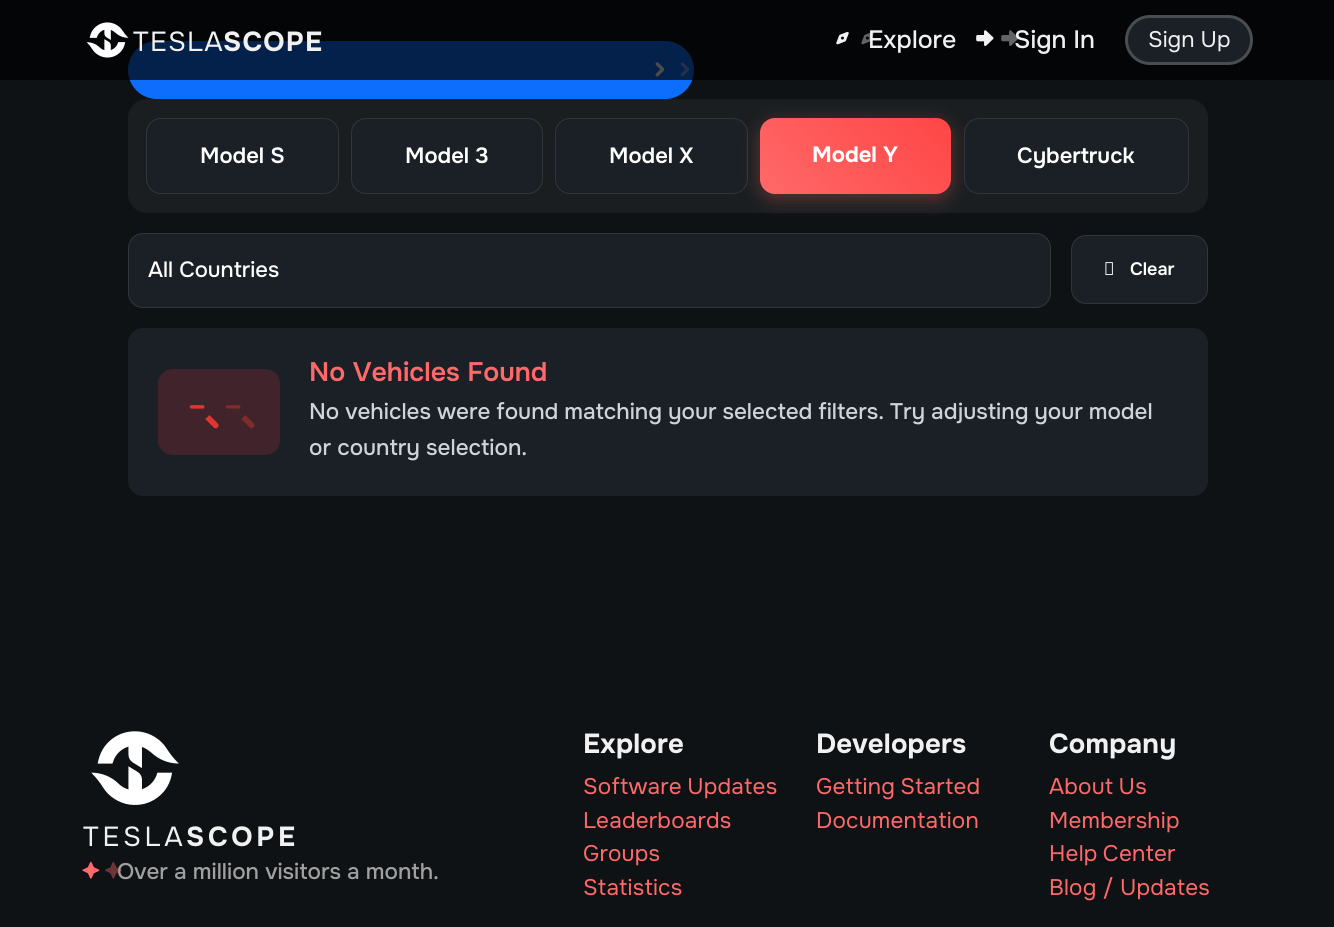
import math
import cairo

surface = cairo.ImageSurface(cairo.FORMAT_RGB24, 1334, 927)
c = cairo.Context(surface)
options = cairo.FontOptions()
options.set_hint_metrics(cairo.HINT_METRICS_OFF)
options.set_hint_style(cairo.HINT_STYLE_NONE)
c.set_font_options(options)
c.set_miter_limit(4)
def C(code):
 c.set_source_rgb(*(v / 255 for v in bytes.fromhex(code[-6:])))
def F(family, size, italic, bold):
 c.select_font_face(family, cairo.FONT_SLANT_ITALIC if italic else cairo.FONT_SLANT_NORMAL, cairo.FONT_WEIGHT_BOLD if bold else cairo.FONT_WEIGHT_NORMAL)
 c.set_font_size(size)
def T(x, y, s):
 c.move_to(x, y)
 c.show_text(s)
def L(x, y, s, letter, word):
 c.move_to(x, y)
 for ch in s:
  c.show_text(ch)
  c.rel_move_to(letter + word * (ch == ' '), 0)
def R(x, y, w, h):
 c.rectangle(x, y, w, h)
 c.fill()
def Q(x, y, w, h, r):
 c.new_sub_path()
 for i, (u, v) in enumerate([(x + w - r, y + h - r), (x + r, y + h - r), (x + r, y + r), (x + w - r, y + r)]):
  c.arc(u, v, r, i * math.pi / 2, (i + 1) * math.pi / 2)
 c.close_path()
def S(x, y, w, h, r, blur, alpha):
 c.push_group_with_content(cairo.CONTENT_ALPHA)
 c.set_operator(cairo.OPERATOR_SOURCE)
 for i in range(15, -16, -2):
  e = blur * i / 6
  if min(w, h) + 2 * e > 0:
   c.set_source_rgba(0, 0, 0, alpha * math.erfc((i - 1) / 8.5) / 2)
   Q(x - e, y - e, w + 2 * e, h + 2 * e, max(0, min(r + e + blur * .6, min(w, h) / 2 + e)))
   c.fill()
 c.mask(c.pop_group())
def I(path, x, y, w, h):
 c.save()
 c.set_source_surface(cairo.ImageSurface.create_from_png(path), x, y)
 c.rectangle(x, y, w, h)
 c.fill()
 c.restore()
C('0e1214')
c.paint()
C('0d6efd')
Q(128.5,41.5,565,57,28.5)
c.fill_preserve()
c.set_line_width(1)
c.stroke()
I('6.png',655,62,10,15)
I('7.png',655,62,35,15)
c.set_source_rgba(0,0,0,0.7)
R(0,0,1334,80)
I('1.png',86,22,43,36)
F('Onest',27.5,0,0)
C('f1f1f1')
L(133,51,'TESLA',1.25,0)
F('Onest',27.5,0,1)
L(223,51,'SCOPE',1.25,0)
I('2.png',836,32,13,13)
F('Onest Medium',25,0,0)
T(868,48,'Explore')
I('3.png',836,32,38,13)
I('4.png',976,30,18,16)
T(1014,48,'Sign In')
I('5.png',976,30,42,16)
C('1a2025')
Q(1125,15,128,50,25)
c.fill()
Q(1126.5,16.5,125,47,23.5)
c.set_source_rgba(1,1,1,0.2)
c.set_line_width(3)
c.stroke()
F('Onest',22.5,0,0)
C('f1f1f1')
T(1148,47,'Sign Up')
C('1a1e20')
Q(128,99,1080,114,19)
c.fill()
C('1a2025')
Q(146.5,118.5,192,75,14.5)
c.fill_preserve()
C('31363b')
c.set_line_width(1)
c.stroke()
F('Onest SemiBold',22,0,0)
C('ffffff')
T(200,163,'Model S')
C('1a2025')
Q(351.5,118.5,191,75,14.5)
c.fill_preserve()
C('31363b')
c.stroke()
C('ffffff')
T(405,163,'Model 3')
C('1a2025')
Q(555.5,118.5,192,75,14.5)
c.fill_preserve()
C('31363b')
c.stroke()
C('ffffff')
T(609,163,'Model X')
C('ff6969')
S(760,123,191,76,15,9.5,.3)
gradient = cairo.LinearGradient(789,223,923,89)
gradient.add_color_stop_rgba(0,1,0.412,0.412,1)
gradient.add_color_stop_rgba(1,1,0.271,0.271,1)
c.set_source(gradient)
Q(760,118,191,76,15)
c.fill()
F('Onest',22,0,1)
C('ffffff')
T(812,162,'Model Y')
C('1a2025')
Q(964.5,118.5,224,75,14.5)
c.fill_preserve()
C('31363b')
c.stroke()
F('Onest SemiBold',22,0,0)
C('ffffff')
T(1017,163,'Cybertruck')
C('1a2025')
Q(128,233,923,75,15)
c.fill()
Q(128.5,233.5,922,74,14.5)
c.set_source_rgba(1,1,1,0.1)
c.stroke()
F('Onest Medium',22,0,0)
C('ffffff')
T(148,277,'All Countries')
C('1a2025')
Q(1071,235,137,69,15)
c.fill()
Q(1071.5,235.5,136,68,14.5)
c.set_source_rgba(1,1,1,0.1)
c.stroke()
I('8.png',1105,262,8,13)
F('Onest SemiBold',18,0,0)
C('ffffff')
T(1130,275,'Clear')
C('1a2025')
Q(128,328,1080,168,15)
c.fill()
C('41242b')
Q(158,369,122,86,15)
c.fill()
I('9.png',189,405,30,24)
I('10.png',189,405,66,24)
F('Onest SemiBold',26.75,0,0)
C('ff6969')
T(309,381,'No Vehicles Found')
F('Onest Medium',22.5,0,0)
C('ced4da')
L(309,419,'No vehicles were found matching your selected filters. Try adjusting your model',0,-.25)
T(309,455,'or country selection.')
I('11.png',91,731,88,74)
F('Onest',27.5,0,0)
C('f1f1f1')
L(83,846,'TESLA',3.75,0)
F('Onest',27.5,0,1)
L(186,846,'SCOPE',3.75,0)
I('12.png',82,861,18,18)
F('Onest Medium',22.5,0,0)
C('a0a0a0')
T(117,879,'Over a million visitors a month.')
I('13.png',82,861,40,18)
F('Onest',27.5,0,1)
C('f1f1f1')
L(583,753,'Explore',.2,0)
F('Onest',22.5,0,0)
C('ff6969')
L(583,794,'Software Updates',.2,-1)
L(583,828,'Leaderboards',.2,0)
L(583,861,'Groups',.2,0)
L(583,895,'Statistics',.2,0)
F('Onest',27.5,0,1)
C('f1f1f1')
L(816,753,'Developers',.2,0)
F('Onest',22.5,0,0)
C('ff6969')
L(816,794,'Getting Started',.2,-1)
L(816,828,'Documentation',.2,0)
F('Onest',27.5,0,1)
C('f1f1f1')
L(1049,753,'Company',.2,0)
F('Onest',22.5,0,0)
C('ff6969')
L(1049,794,'About Us',.2,-1)
L(1049,828,'Membership',.2,0)
L(1049,861,'Help Center',.2,-1)
L(1049,895,'Blog / Updates',.2,0)
surface.write_to_png('o.png')
